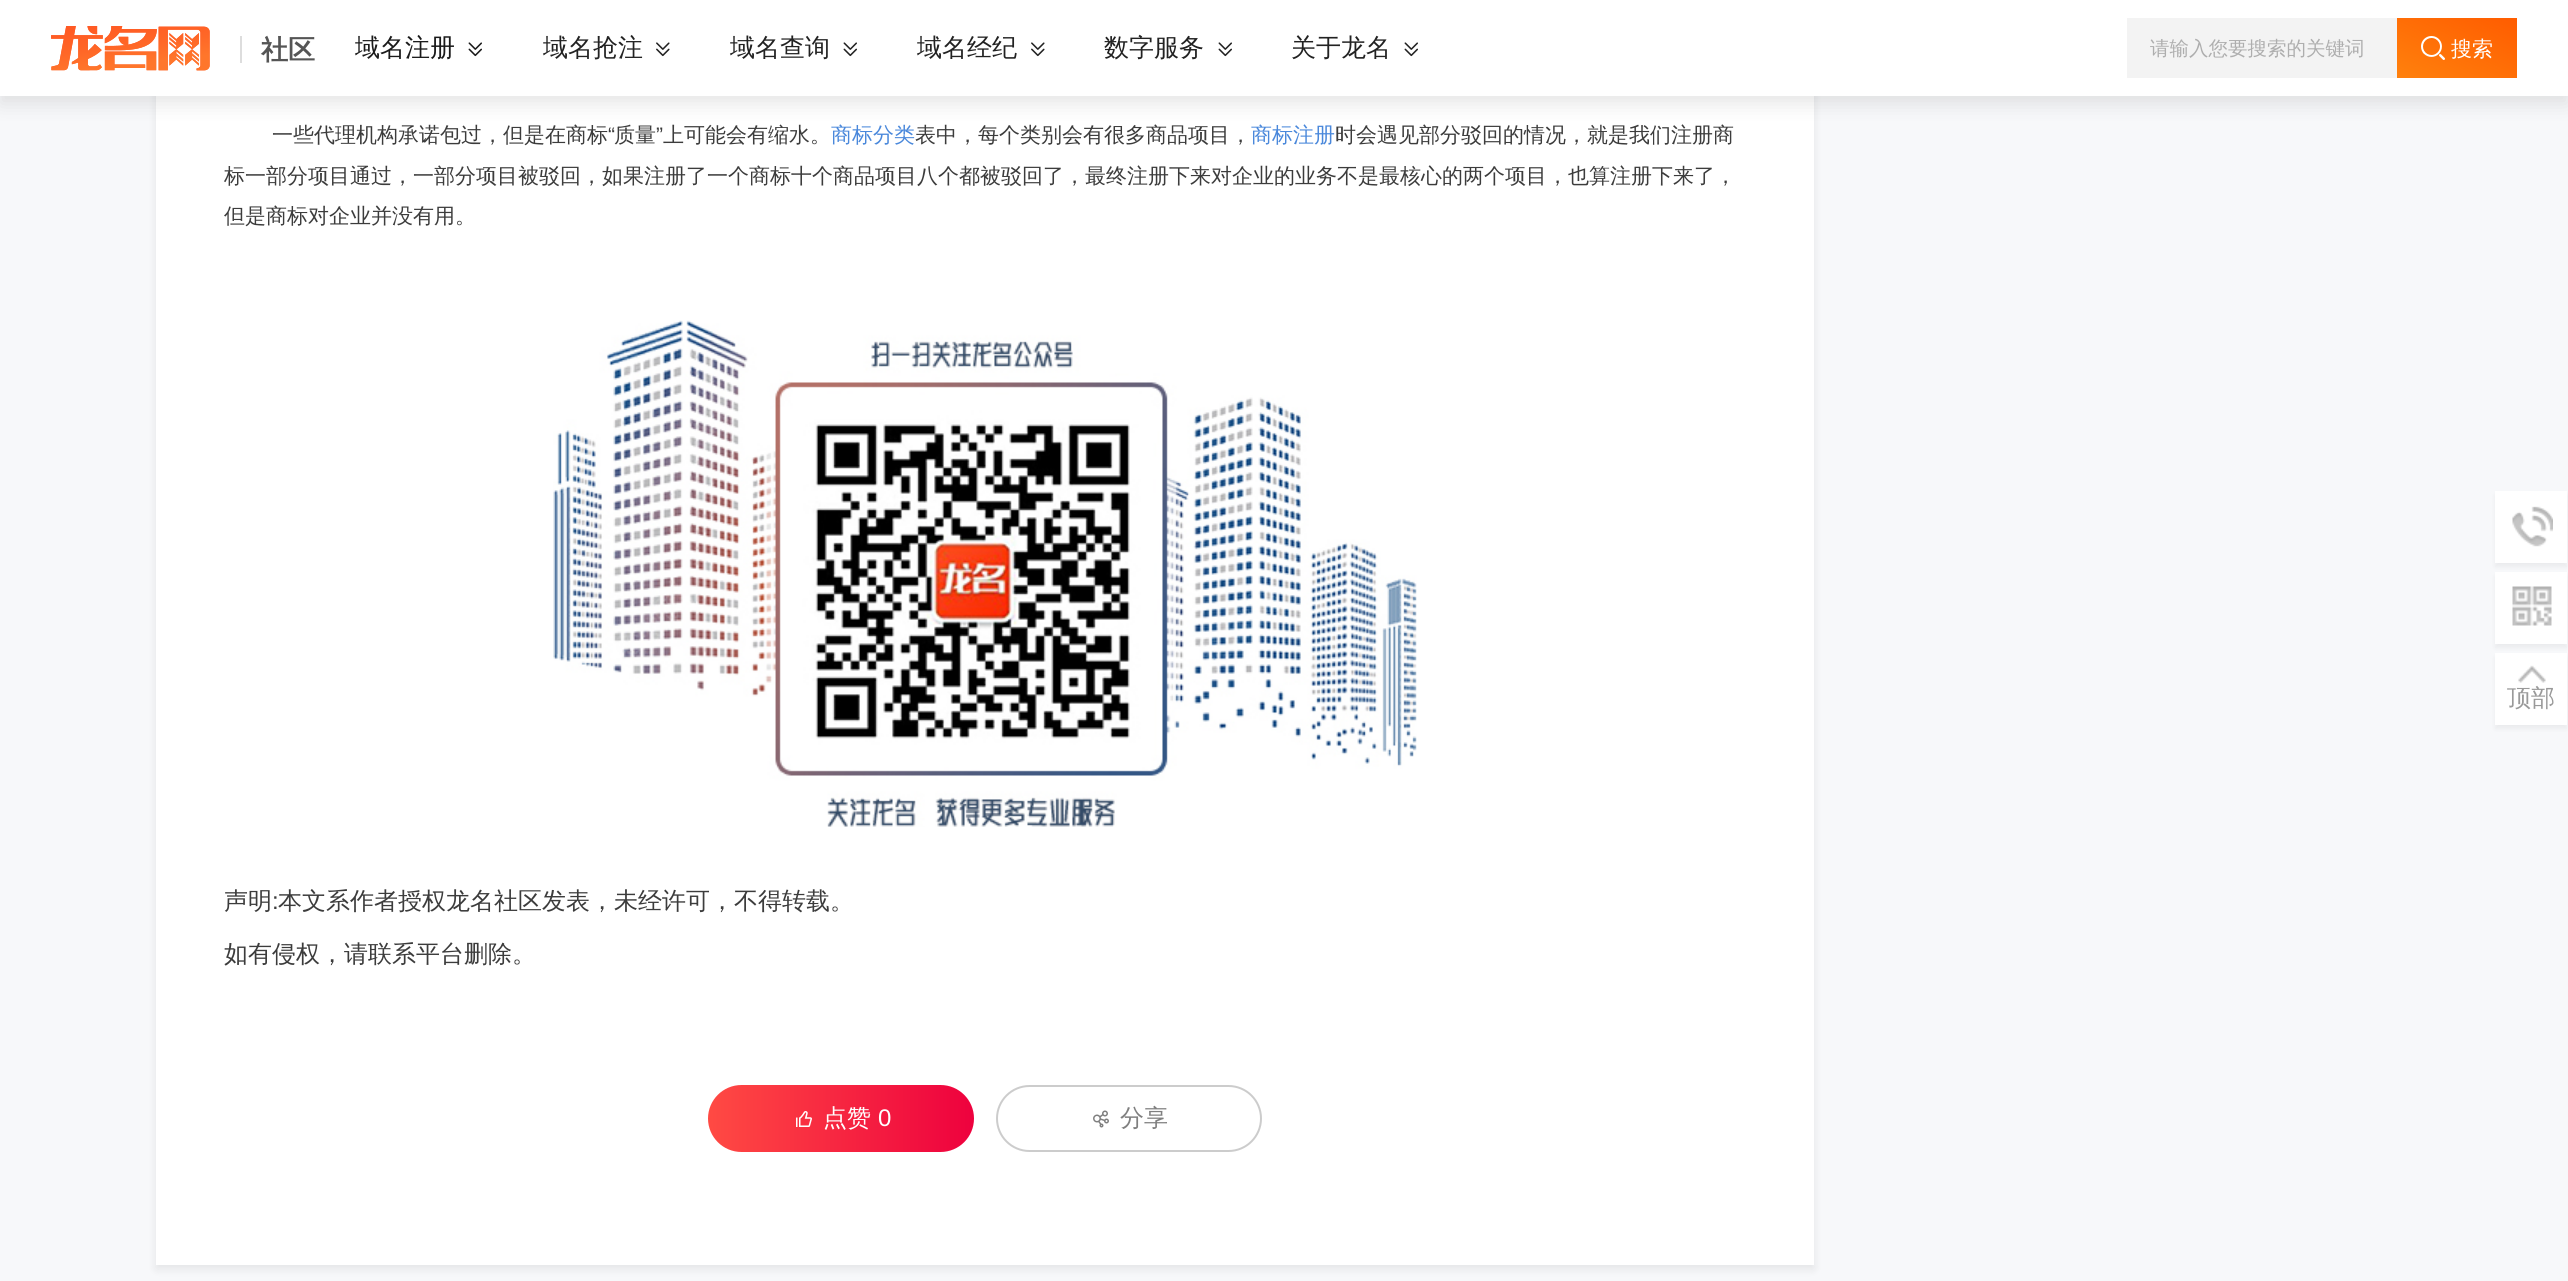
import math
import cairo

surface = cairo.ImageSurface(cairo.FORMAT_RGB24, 2568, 1281)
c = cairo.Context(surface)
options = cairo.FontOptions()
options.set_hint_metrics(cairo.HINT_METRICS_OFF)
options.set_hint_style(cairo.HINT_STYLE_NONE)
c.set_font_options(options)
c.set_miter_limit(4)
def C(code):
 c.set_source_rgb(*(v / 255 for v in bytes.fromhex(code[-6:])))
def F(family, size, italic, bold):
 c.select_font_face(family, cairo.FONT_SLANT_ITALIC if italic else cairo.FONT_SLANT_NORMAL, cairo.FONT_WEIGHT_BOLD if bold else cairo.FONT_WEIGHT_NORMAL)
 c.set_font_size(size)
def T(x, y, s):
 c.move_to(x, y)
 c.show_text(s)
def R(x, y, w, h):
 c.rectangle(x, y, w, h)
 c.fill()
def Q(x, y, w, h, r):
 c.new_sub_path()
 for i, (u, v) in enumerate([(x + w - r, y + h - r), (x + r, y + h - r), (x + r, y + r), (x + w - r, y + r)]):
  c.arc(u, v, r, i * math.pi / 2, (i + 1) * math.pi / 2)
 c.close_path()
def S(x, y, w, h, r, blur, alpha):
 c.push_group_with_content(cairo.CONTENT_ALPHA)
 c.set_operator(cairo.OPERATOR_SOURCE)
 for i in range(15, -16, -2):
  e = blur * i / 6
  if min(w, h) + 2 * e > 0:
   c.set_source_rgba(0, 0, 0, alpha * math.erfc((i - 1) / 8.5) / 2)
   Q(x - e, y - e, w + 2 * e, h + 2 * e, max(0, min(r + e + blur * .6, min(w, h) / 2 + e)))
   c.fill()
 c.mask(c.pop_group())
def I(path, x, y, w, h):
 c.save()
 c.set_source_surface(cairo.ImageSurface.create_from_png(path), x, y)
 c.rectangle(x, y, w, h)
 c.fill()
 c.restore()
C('f7f8fa')
c.paint()
C('000000')
S(156,-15,1658,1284,0,5,.08)
C('ffffff')
R(156,96,1658,1169)
C('000000')
S(0,8,2568,96,0,9.5,.1)
C('ffffff')
R(0,0,2568,96)
I('1.png',51,26,159,45)
C('dddddd')
R(240,36,2,27)
F('WenQuanYi Zen Hei',27,0,1)
C('555555')
T(261,59,'社区')
F('WenQuanYi Zen Hei Medium',25,0,0)
C('1a1a1a')
T(355,56,'域名注册')
I('2.png',468,42,14,15)
C('222222')
T(543,56,'域名抢注')
I('3.png',656,42,14,15)
T(730,56,'域名查询')
I('4.png',843,42,14,15)
T(917,56,'域名经纪')
I('3.png',1031,42,14,15)
T(1104,56,'数字服务')
I('4.png',1218,42,14,15)
T(1291,56,'关于龙名')
I('4.png',1404,42,14,15)
C('f3f3f3')
R(2127,18,270,60)
F('WenQuanYi Zen Hei Medium',19.5,0,0)
C('aeaeae')
T(2150,55,'请输入您要搜索的关键词')
gradient = cairo.LinearGradient(2479,.4,2435,96)
gradient.add_color_stop_rgba(0,1,0.361,0,1)
gradient.add_color_stop_rgba(1,1,0.506,0.051,1)
c.set_source(gradient)
R(2397,18,120,60)
I('5.png',2421,36,24,24)
F('WenQuanYi Zen Hei Medium',21,0,0)
C('ffffff')
T(2451,56,'搜索')
C('3c3c3c')
T(272,142,'一些代理机构承诺包过，但是在商标')
F('Liberation Sans',21,0,0)
T(608,142,'“')
F('WenQuanYi Zen Hei Medium',21,0,0)
T(614,142,'质量')
F('Liberation Sans',21,0,0)
T(656,142,'”')
F('WenQuanYi Zen Hei Medium',21,0,0)
T(663,142,'上可能会有缩水。')
C('4a88db')
T(831,142,'商标分类')
C('3c3c3c')
T(915,142,'表中，每个类别会有很多商品项目，')
C('4a88db')
T(1251,142,'商标注册')
C('3c3c3c')
T(1335,142,'时会遇见部分驳回的情况，就是我们注册商')
T(224,183,'标一部分项目通过，一部分项目被驳回，如果注册了一个商标十个商品项目八个都被驳回了，最终注册下来对企业的业务不是最核心的两个项目，也算注册下来了，')
T(224,223,'但是商标对企业并没有用。')
I('6.png',553,320,864,507)
F('WenQuanYi Zen Hei Medium',24,0,0)
T(224,909,'声明')
F('Liberation Sans',24,0,0)
T(272,909,':')
F('WenQuanYi Zen Hei Medium',24,0,0)
T(278,909,'本文系作者授权龙名社区发表，未经许可，不得转载。')
T(224,962,'如有侵权，请联系平台删除。')
gradient = cairo.LinearGradient(708,1118,974,1118)
gradient.add_color_stop_rgba(0,1,0.29,0.263,1)
gradient.add_color_stop_rgba(1,0.933,0.004,0.243,1)
c.set_source(gradient)
Q(708,1085,266,67,33.5)
c.fill()
I('7.png',796,1111,16,16)
C('ffffff')
T(823,1126,'点赞')
F('Liberation Sans',24,0,0)
T(878,1126,'0')
Q(997,1086,264,65,32.5)
C('cccccc')
c.stroke()
I('8.png',1093,1110,16,18)
F('WenQuanYi Zen Hei Medium',24,0,0)
C('7f7f7f')
T(1120,1126,'分享')
C('000000')
S(2495,495,72,72,0,2,.05)
C('ffffff')
R(2495,491,72,72)
I('9.png',2512,506,41,41)
C('000000')
S(2495,576,72,72,0,2,.05)
C('ffffff')
R(2495,572,72,72)
I('10.png',2512,586,40,40)
C('000000')
S(2495,657,72,72,0,2,.05)
C('ffffff')
R(2495,653,72,72)
I('11.png',2518,665,28,18)
C('999999')
T(2507,706,'顶部')
surface.write_to_png('o.png')
